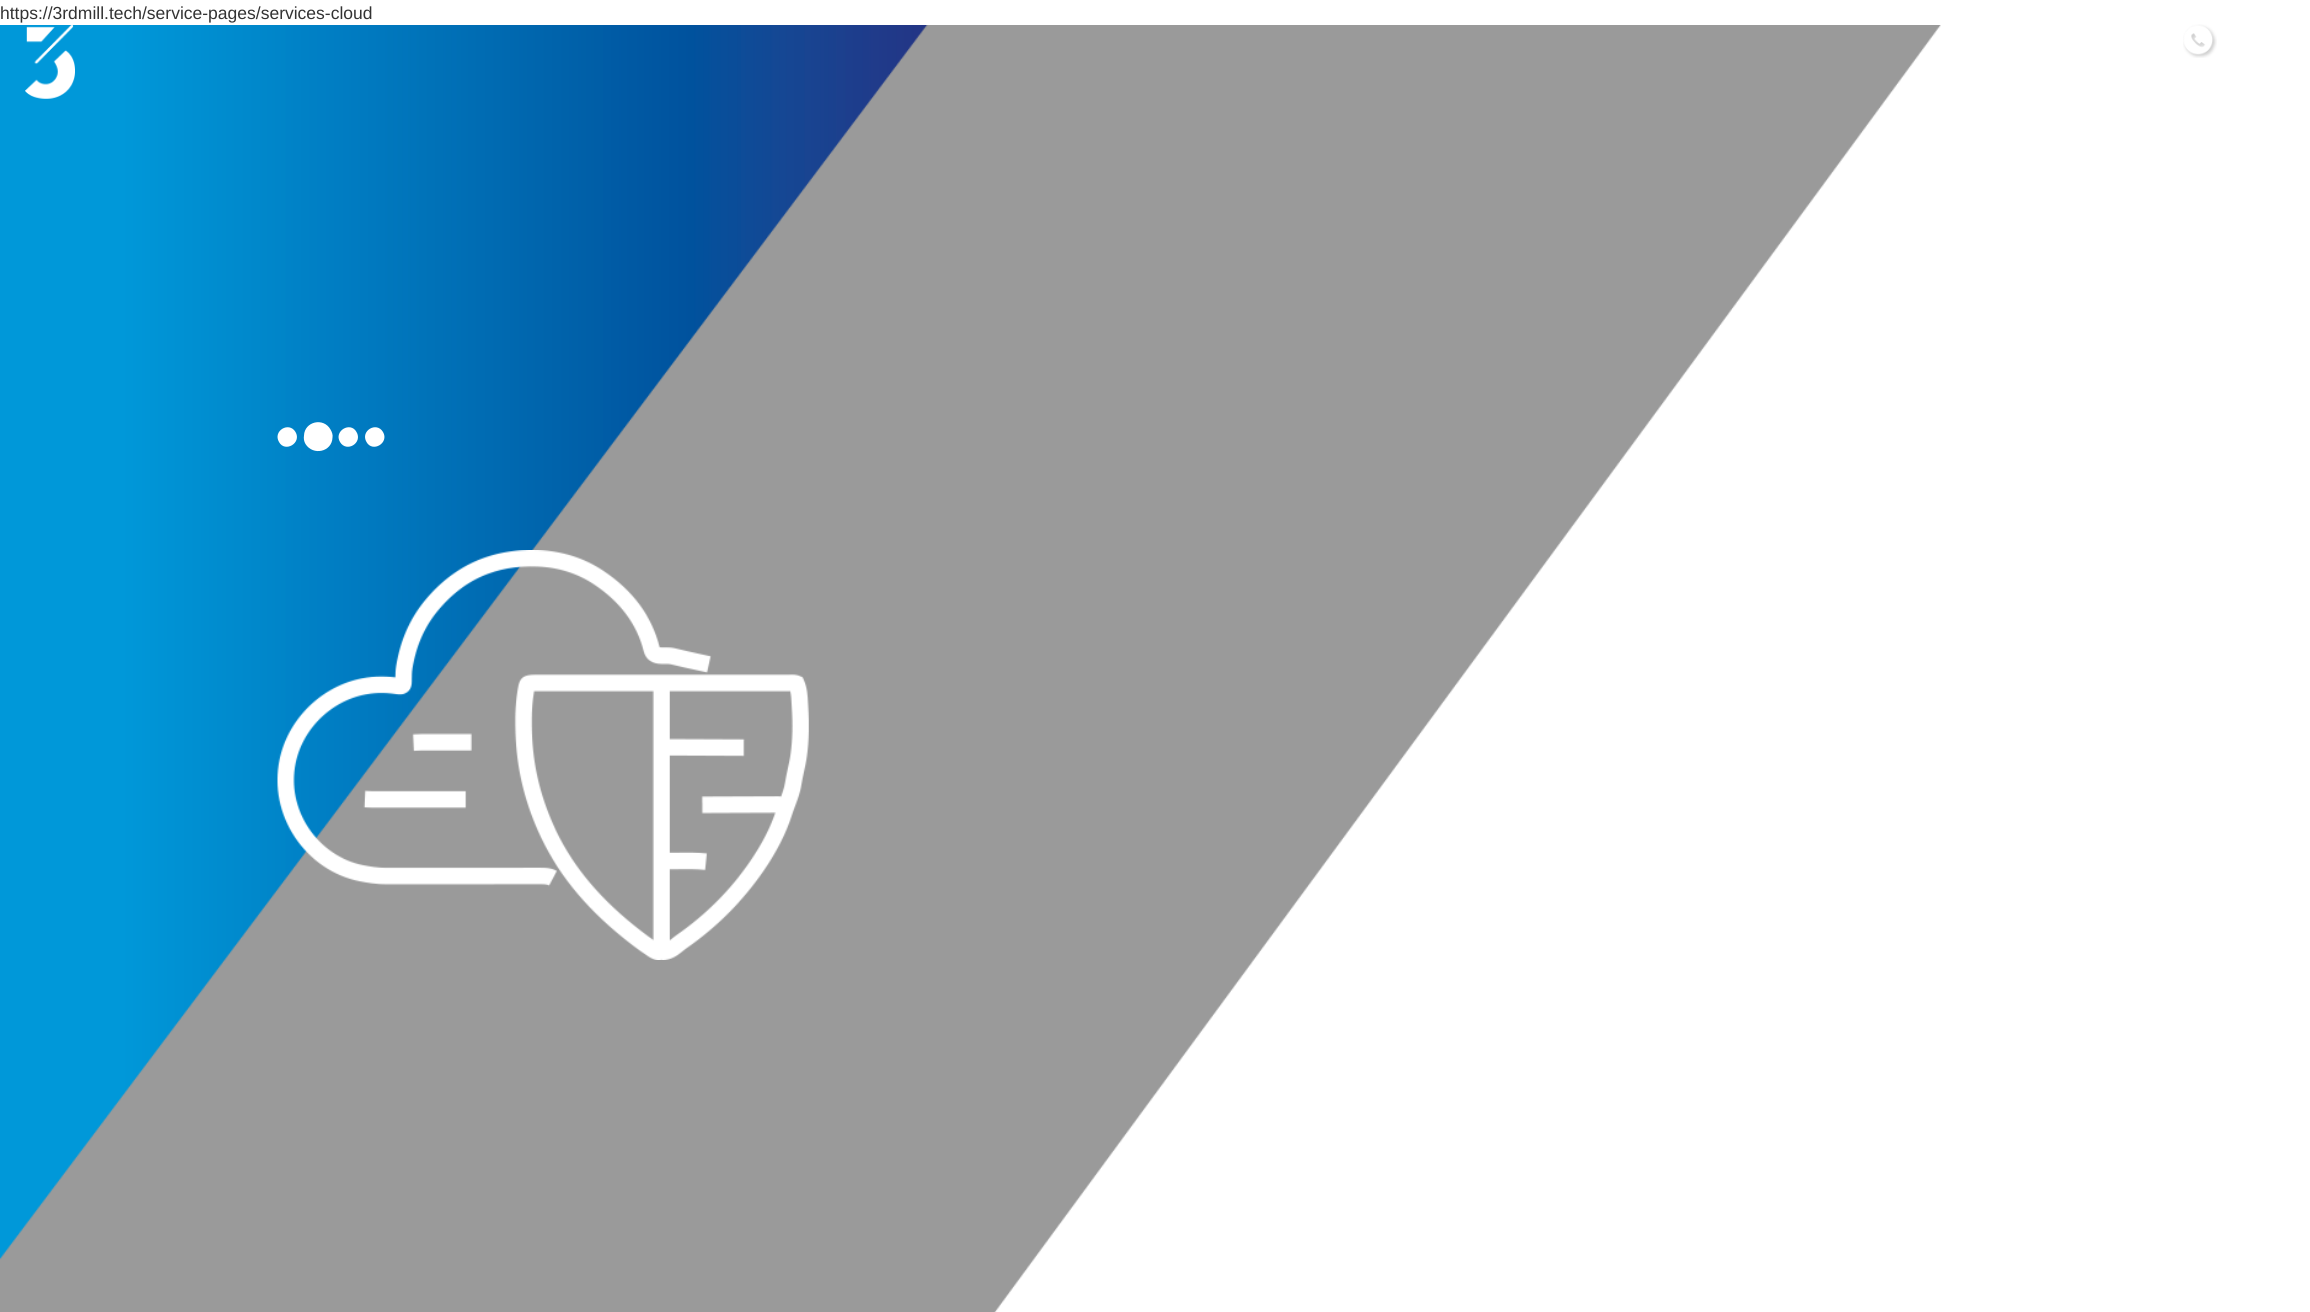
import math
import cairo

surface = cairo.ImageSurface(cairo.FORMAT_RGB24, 2310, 1312)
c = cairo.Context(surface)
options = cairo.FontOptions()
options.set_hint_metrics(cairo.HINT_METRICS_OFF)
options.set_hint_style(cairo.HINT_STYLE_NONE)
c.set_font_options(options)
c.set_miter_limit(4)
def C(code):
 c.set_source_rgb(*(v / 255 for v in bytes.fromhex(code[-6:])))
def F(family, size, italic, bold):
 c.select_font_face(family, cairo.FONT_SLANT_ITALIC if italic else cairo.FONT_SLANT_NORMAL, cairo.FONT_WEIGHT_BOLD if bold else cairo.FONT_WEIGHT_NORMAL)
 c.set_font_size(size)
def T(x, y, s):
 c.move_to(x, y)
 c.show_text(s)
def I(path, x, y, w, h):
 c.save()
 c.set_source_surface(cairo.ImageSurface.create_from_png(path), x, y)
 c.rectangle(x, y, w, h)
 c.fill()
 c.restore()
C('ffffff')
c.paint()
F('Liberation Sans',17.5,0,0)
C('333333')
T(0,19,'https://3rdmill.tech/service-pages/services-cloud')
I('3.png',0,25,1941,1287)
I('1.png',25,25,50,74)
I('2.png',2183,24,34,34)
C('ffffff')
c.new_path()
c.move_to(295.5,432)
c.curve_to(302,443,285,453,279,442)
c.curve_to(272.5,431,289,421,295.5,432)
c.close_path()
c.move_to(330.5,429.5)
c.curve_to(332,432,333,435,332.5,437.5)
c.curve_to(332,452,313,456,305.5,444)
c.curve_to(304,441.5,303.5,438.5,304,435.5)
c.curve_to(304.5,421.5,323.5,417,330.5,429.5)
c.close_path()
c.fill()
c.new_path()
c.move_to(356.5,432)
c.curve_to(363,443,346.5,453,340,442)
c.curve_to(333.5,431,350.5,421,356.5,432)
c.close_path()
c.move_to(383,432)
c.curve_to(389.5,443,372.5,453,366.5,442)
c.curve_to(360,431,376.5,421,383,432)
c.close_path()
c.fill()
I('4.png',277,550,532,410)
surface.write_to_png('o.png')
